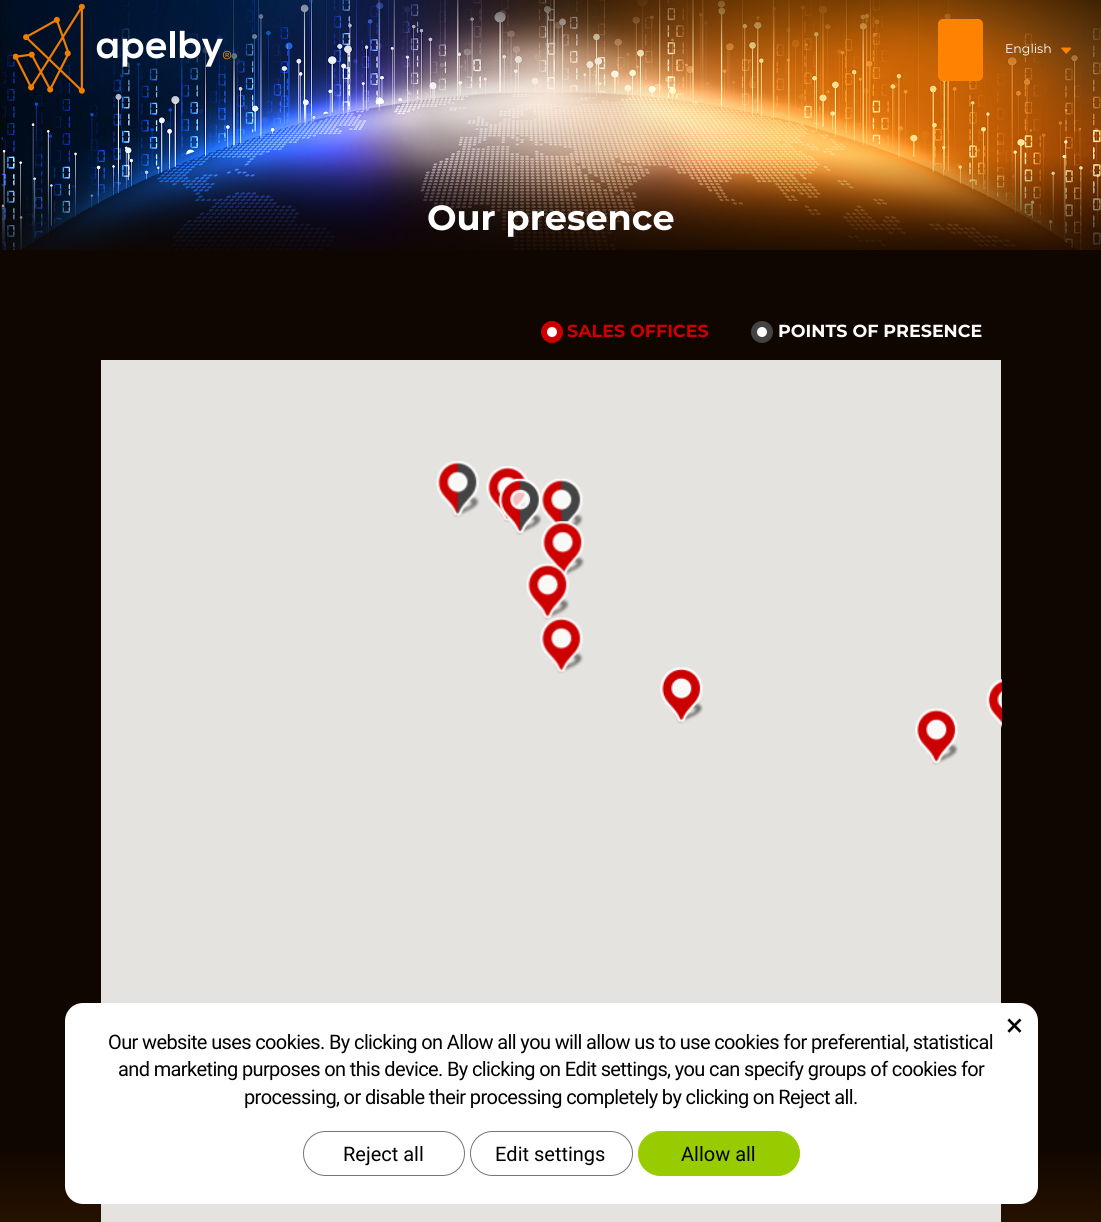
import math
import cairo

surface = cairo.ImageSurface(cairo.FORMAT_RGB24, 1101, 1222)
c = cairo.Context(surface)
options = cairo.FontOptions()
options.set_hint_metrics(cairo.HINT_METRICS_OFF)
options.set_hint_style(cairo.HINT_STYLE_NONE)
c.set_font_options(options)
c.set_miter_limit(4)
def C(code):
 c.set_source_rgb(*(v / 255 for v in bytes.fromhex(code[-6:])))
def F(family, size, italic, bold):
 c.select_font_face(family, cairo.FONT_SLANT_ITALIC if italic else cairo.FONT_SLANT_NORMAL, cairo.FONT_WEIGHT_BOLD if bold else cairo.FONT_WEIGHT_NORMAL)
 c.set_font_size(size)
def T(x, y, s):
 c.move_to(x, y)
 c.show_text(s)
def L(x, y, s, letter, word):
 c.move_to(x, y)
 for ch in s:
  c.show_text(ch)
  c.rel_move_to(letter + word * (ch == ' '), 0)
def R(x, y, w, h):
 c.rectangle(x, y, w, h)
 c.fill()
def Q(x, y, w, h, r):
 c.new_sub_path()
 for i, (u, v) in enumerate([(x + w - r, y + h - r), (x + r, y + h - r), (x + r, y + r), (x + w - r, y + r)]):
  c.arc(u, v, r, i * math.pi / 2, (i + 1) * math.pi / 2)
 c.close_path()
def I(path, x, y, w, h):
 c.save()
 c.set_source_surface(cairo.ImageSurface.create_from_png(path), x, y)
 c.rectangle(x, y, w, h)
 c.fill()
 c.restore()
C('100600')
c.paint()
I('3.png',0,0,1101,250)
I('1.png',13,4,218,90)
C('ff8300')
Q(938,19,45,62,5)
c.fill()
F('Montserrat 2 Thin',12.5,0,0)
C('ffffff')
T(1005,53,'English')
I('2.png',1061,47,11,7)
F('Montserrat Thin',35,0,0)
T(427,230,'Our presence')
c.new_path()
c.arc(552,332,8,0,2 * math.pi)
c.fill_preserve()
C('cc0000')
c.set_line_width(6)
c.stroke()
F('Montserrat Thin',17.5,0,0)
T(567,337,'SALES OFFICES')
C('ffffff')
c.new_path()
c.arc(762,332,8,0,2 * math.pi)
c.fill_preserve()
C('434343')
c.stroke()
C('ffffff')
T(778,337,'POINTS OF PRESENCE')
gradient = cairo.LinearGradient(551,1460,551,1138)
gradient.add_color_stop_rgba(0,0.416,0.212,0,1)
gradient.add_color_stop_rgba(.99,0.059,0.02,0,1)
gradient.add_color_stop_rgba(1,0.059,0.02,0,1)
c.set_source(gradient)
R(0,1153,1101,69)
C('e5e3df')
R(101,360,900,862)
I('4.png',436,461,44,57)
I('5.png',486,466,44,57)
I('7.png',540,478,44,57)
I('6.png',498,478,44,57)
I('8.png',541,521,44,56)
I('9.png',526,563,44,57)
I('10.png',540,617,44,57)
I('11.png',660,667,44,57)
I('12.png',915,708,43,57)
I('13.png',986,679,16,49)
C('ffffff')
Q(65,1003,973,201,18)
c.fill()
F('Roboto',32,0,0)
C('000000')
T(1006,1036,'×')
F('Roboto',20,0,0)
L(108,1049,'Our website uses cookies. By clicking on Allow all you will allow us to use cookies for preferential, statistical',-.62,0)
L(118,1076,'and marketing purposes on this device. By clicking on Edit settings, you can specify groups of cookies for',-.62,0)
L(244,1104,'processing, or disable their processing completely by clicking on Reject all.',-.62,0)
Q(303.5,1131.5,161,44,22)
C('767676')
c.set_line_width(1)
c.stroke()
C('000000')
T(343,1161,'Reject all')
Q(470.5,1131.5,162,44,22)
C('767676')
c.stroke()
C('000000')
T(495,1161,'Edit settings')
C('99cc00')
Q(638.5,1131.5,161,44,22)
c.fill_preserve()
c.stroke()
C('000000')
T(681,1161,'Allow all')
surface.write_to_png('o.png')
